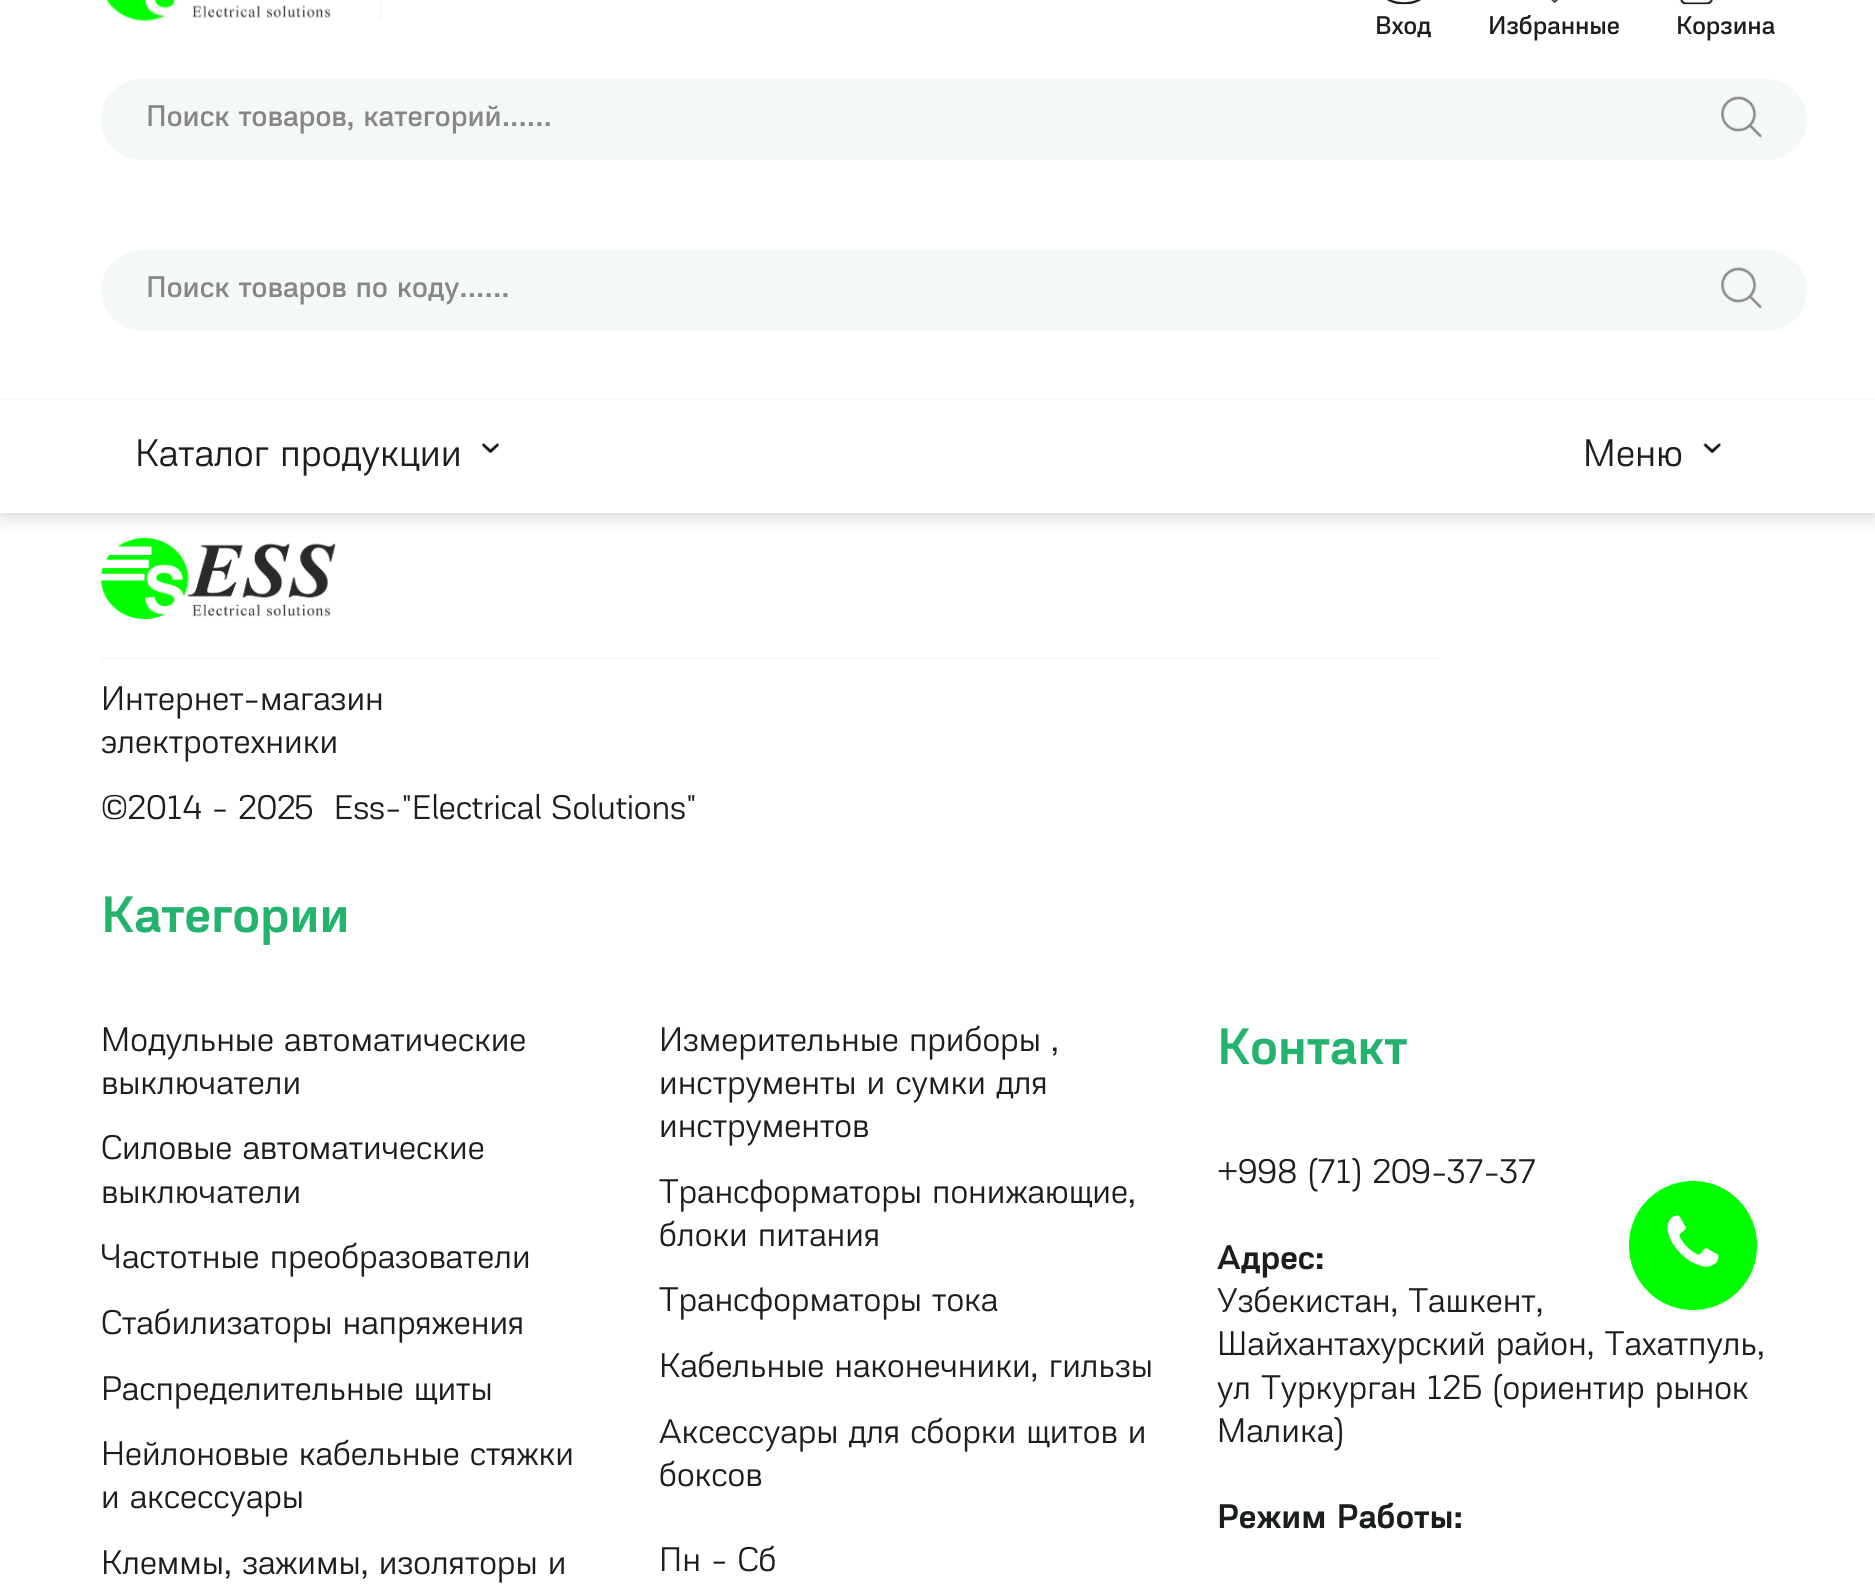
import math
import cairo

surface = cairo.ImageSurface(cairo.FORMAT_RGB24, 1875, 1595)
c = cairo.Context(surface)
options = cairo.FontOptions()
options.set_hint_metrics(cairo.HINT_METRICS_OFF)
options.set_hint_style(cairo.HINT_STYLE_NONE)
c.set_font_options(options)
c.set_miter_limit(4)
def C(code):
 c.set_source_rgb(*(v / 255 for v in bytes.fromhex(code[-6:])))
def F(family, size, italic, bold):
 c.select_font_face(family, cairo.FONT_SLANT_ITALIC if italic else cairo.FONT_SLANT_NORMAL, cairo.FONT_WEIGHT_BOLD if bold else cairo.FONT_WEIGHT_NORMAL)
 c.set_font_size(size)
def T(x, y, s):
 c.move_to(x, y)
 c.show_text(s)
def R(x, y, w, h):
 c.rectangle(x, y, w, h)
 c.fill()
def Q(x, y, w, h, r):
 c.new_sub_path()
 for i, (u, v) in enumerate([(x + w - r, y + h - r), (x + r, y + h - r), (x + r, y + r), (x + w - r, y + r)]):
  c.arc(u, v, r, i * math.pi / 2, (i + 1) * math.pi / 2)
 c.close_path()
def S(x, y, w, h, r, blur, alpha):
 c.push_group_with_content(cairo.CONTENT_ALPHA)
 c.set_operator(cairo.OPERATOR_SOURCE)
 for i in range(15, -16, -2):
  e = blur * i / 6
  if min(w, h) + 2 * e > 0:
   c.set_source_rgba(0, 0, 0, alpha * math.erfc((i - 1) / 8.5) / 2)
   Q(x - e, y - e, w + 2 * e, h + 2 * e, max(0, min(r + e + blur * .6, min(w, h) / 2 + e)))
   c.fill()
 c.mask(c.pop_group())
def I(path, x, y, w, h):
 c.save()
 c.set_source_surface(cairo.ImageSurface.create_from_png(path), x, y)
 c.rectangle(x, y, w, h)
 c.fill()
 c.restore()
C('ffffff')
c.paint()
I('9.png',101,538,235,81)
C('cacaca')
S(0,-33,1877,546,0,11,1)
C('ffffff')
R(0,0,1875,513)
C('f4f8f7')
R(0,398,1875,2)
I('1.png',106,0,225,21)
R(380,0,2,20)
I('2.png',1386,0,35,5)
F('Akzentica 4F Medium',27,0,0)
C('1a1e1d')
T(1375,34,'Вход')
I('3.png',1551,0,7,3)
T(1488,34,'Избранные')
I('4.png',1679,0,34,5)
T(1676,34,'Корзина')
C('f4f8f7')
Q(101,79,1706,81,40.5)
c.fill()
F('Akzentica 4F Medium',31.5,0,0)
C('878686')
T(146,126,'Поиск товаров, категорий......')
I('5.png',1721,96,41,42)
C('f4f8f7')
Q(101,250,1706,81,40.5)
c.fill()
C('878686')
T(146,297,'Поиск товаров по коду......')
I('6.png',1721,267,41,42)
F('Akzentica 4F',40.5,0,0)
C('1a1e1d')
T(135,466,'Каталог продукции')
I('7.png',481,442,19,12)
T(1583,466,'Меню')
I('8.png',1703,442,18,12)
C('f4f8f7')
R(101,657,1339,2)
F('Akzentica 4F',36,0,0)
C('1a1e1d')
T(101,710,'Интернет-магазин')
T(101,753,'электротехники')
T(101,819,'©2014 - 2025  Ess-"Electrical Solutions"')
F('Akzentica 4F SemiBold',54,0,0)
C('23b36d')
T(101,932,'Категории')
F('Akzentica 4F',36,0,0)
C('1a1e1d')
T(101,1051,'Модульные автоматические')
T(101,1094,'выключатели')
T(101,1159,'Силовые автоматические')
T(101,1203,'выключатели')
T(101,1268,'Частотные преобразователи')
T(101,1334,'Стабилизаторы напряжения')
T(101,1400,'Распределительные щиты')
T(101,1465,'Нейлоновые кабельные стяжки')
T(101,1508,'и аксессуары')
T(101,1574,'Клеммы, зажимы, изоляторы и')
T(659,1051,'Измерительные приборы ,')
T(659,1094,'инструменты и сумки для')
T(659,1137,'инструментов')
T(659,1203,'Трансформаторы понижающие,')
T(659,1246,'блоки питания')
T(659,1311,'Трансформаторы тока')
T(659,1377,'Кабельные наконечники, гильзы')
T(659,1443,'Аксессуары для сборки щитов и')
T(659,1486,'боксов')
F('Akzentica 4F SemiBold',54,0,0)
C('23b36d')
T(1217,1064,'Контакт')
F('Akzentica 4F',36,0,0)
C('1a1e1d')
T(1217,1183,'+998 (71) 209-37-37')
F('Akzentica 4F SemiBold',36,0,0)
T(1217,1269,'Адрес:')
F('Akzentica 4F',36,0,0)
T(1217,1312,'Узбекистан, Ташкент,')
T(1217,1355,'Шайхантахурский район, Тахатпуль,')
T(1217,1399,'ул Туркурган 12Б (ориентир рынок')
T(1217,1442,'Малика)')
F('Akzentica 4F SemiBold',36,0,0)
T(1217,1528,'Режим Работы:')
F('Akzentica 4F',36,0,0)
T(659,1571,'Пн - Сб')
C('00ff00')
Q(1629,1181,128,129,64)
c.fill()
I('10.png',1667,1215,52,52)
surface.write_to_png('o.png')
